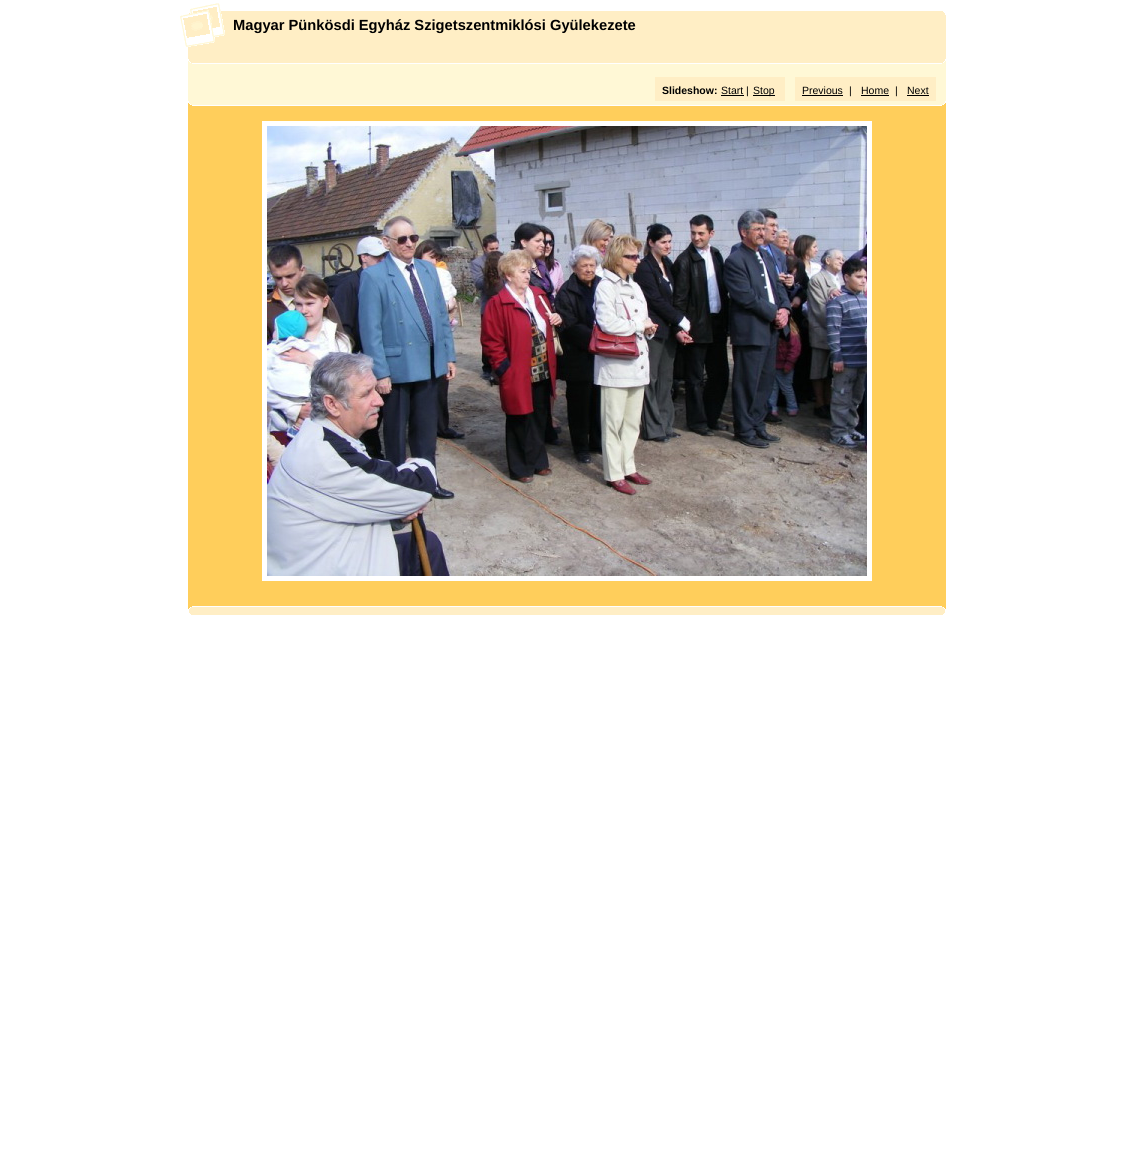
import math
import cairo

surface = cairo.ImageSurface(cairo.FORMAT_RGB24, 1133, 1173)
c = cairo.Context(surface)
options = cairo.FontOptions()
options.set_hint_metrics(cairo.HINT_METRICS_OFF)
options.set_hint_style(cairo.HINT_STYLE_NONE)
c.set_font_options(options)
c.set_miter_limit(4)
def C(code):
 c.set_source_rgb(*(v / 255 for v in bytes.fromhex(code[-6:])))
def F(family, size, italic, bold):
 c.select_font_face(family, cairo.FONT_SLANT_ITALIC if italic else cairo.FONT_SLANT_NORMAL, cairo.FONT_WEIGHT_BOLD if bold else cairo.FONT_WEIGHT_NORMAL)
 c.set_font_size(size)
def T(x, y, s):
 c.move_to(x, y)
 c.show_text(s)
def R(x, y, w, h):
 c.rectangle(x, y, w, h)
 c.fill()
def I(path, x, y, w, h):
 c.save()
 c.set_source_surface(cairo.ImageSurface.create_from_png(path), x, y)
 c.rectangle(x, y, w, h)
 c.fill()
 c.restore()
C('ffffff')
c.paint()
C('ffeec5')
R(221,11,723,1)
C('ffffff')
R(943,11,1,1)
C('ffeec5')
R(221,12,724,1)
C('ffffff')
R(944,12,1,1)
C('ffeec5')
R(188,13,758,48)
C('ffffff')
R(945,13,1,2)
R(188,13,1,2)
I('1.png',180,3,45,44)
F('Liberation Sans',14.7,0,1)
C('000000')
T(233,30,'Magyar Pünkösdi Egyház Szigetszentmiklósi Gyülekezete')
C('ffffff')
R(945,59,1,2)
R(188,59,1,2)
C('fff8d6')
R(188,61,758,40)
C('ffeec5')
R(189,61,756,1)
C('ffffff')
R(944,61,1,1)
R(189,61,1,1)
C('ffeec5')
R(190,62,754,1)
C('ffffff')
R(943,62,1,1)
R(190,62,1,1)
R(192,63,750,1)
C('ffeec5')
R(655,77,63,24)
F('Liberation Sans',10.5,0,1)
C('000000')
T(662,94,'Slideshow:')
C('ffeec5')
R(718,77,3,26)
R(721,77,64,24)
C('000000')
R(721,95,23,1)
F('Liberation Sans',10.5,0,0)
T(721,94,'Start |')
R(753,95,22,1)
T(753,94,'Stop')
C('ffeec5')
R(795,77,141,24)
C('000000')
T(802,94,'Previous')
R(802,95,41,1)
T(849,94,'|')
T(861,94,'Home')
R(861,95,28,1)
T(895,94,'|')
T(907,94,'Next')
R(907,95,22,1)
C('fff8d6')
R(188,101,758,2)
C('ffffff')
R(945,101,1,2)
R(188,101,1,2)
C('ffce5b')
R(188,103,758,506)
C('fff8d6')
R(189,103,756,1)
C('ffffff')
R(944,103,1,1)
R(189,103,1,1)
C('fff8d6')
R(190,104,754,1)
C('ffffff')
R(943,104,1,1)
R(190,104,1,1)
R(192,105,750,1)
R(262,121,610,460)
I('2.png',267,126,600,450)
R(192,606,750,1)
C('ffeec5')
R(190,607,754,1)
C('ffffff')
R(943,607,1,1)
R(190,607,1,1)
C('ffeec5')
R(189,608,756,1)
C('ffffff')
R(944,608,1,1)
R(189,608,1,1)
C('ffeec5')
R(188,609,758,4)
C('ffffff')
R(945,609,1,4)
R(188,609,1,4)
C('ffeec5')
R(189,613,756,1)
C('ffffff')
R(944,613,1,1)
R(189,613,1,1)
C('ffeec5')
R(190,614,754,1)
C('ffffff')
R(943,614,1,1)
R(190,614,1,1)
surface.write_to_png('o.png')
